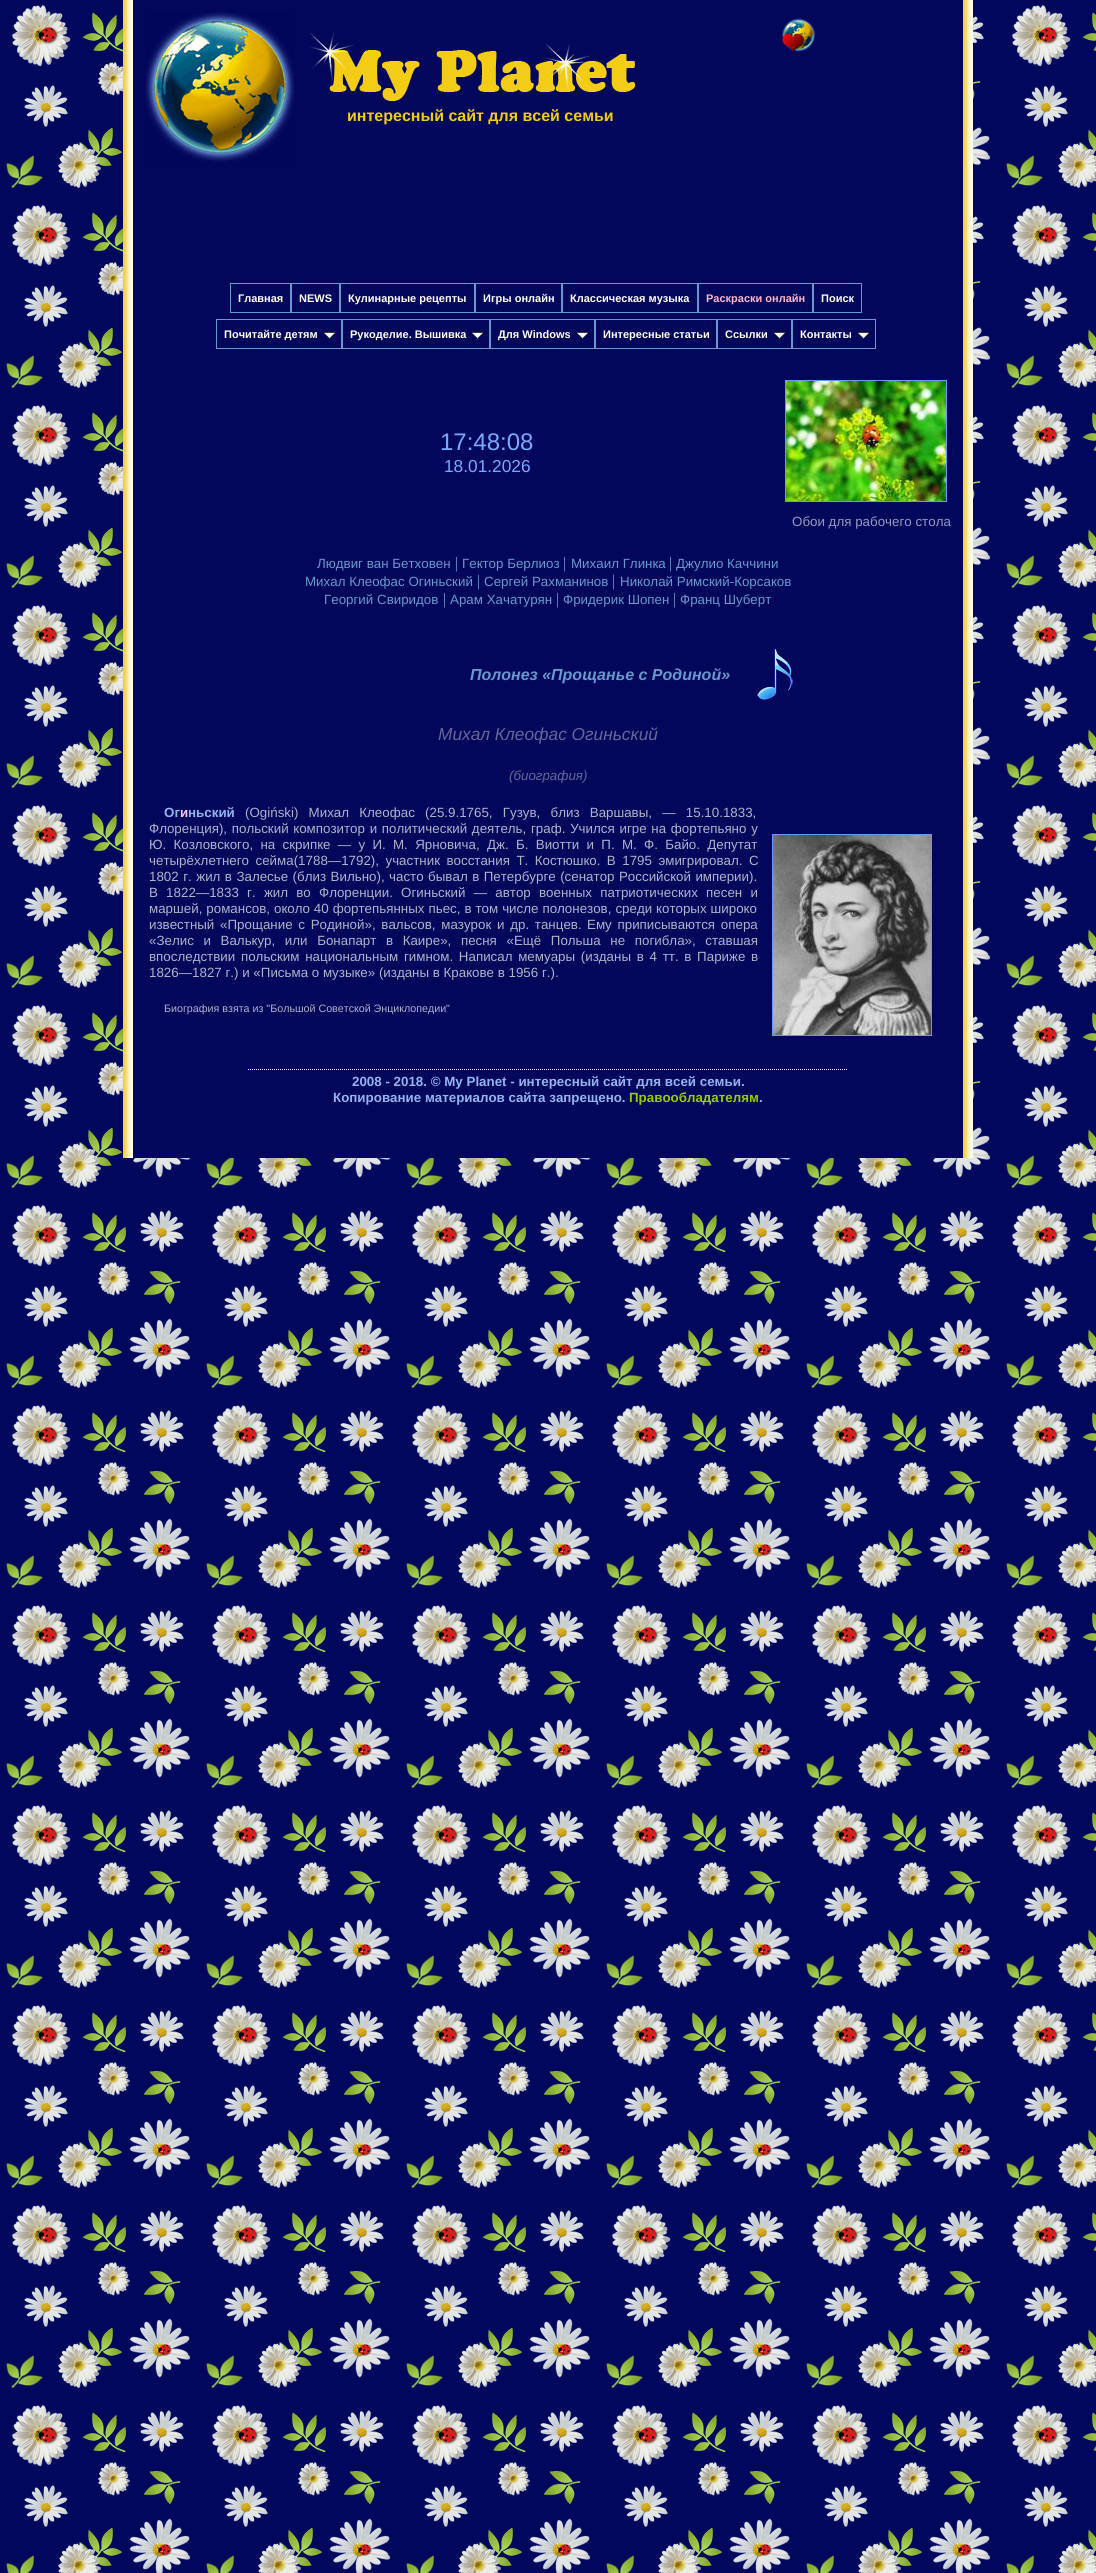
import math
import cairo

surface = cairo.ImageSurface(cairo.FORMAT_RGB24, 1096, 2573)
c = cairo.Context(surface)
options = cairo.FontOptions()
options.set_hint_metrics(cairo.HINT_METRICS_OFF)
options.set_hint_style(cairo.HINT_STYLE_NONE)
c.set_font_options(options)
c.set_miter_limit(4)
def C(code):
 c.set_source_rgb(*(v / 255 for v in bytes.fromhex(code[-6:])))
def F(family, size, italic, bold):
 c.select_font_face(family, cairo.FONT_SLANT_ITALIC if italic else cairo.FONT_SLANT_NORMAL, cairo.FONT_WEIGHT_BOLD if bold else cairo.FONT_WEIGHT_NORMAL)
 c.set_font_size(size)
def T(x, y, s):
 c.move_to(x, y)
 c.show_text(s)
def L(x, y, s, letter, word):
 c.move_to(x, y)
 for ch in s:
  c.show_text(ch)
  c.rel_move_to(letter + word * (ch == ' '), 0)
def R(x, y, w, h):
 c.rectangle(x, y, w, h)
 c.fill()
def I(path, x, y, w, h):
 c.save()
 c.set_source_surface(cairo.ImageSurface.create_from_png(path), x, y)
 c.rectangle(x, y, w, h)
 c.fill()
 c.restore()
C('03075b')
c.paint()
I('1.png',4,5,1092,2568)
C('03075b')
R(133,5,830,1153)
I('2.png',123,0,10,1158)
I('3.png',145,12,150,150)
I('4.png',781,18,34,34)
I('5.png',308,33,328,68)
F('Liberation Sans',16,0,1)
C('f2cb15')
T(347,121,'интересный сайт для всей семьи')
c.rectangle(230.5,283.5,60,29)
C('6699cc')
c.set_line_width(1)
c.stroke()
F('Liberation Sans',11,0,1)
C('ffffff')
T(238,302,'Главная')
c.rectangle(291.5,283.5,48,29)
C('6699cc')
c.stroke()
C('ffffff')
T(299,302,'NEWS')
c.rectangle(340.5,283.5,134,29)
C('6699cc')
c.stroke()
C('ffffff')
T(348,302,'Кулинарные рецепты')
c.rectangle(475.5,283.5,86,29)
C('6699cc')
c.stroke()
C('ffffff')
T(483,302,'Игры онлайн')
c.rectangle(562.5,283.5,135,29)
C('6699cc')
c.stroke()
C('ffffff')
T(570,302,'Классическая музыка')
c.rectangle(698.5,283.5,114,29)
C('6699cc')
c.stroke()
C('ffb5cd')
T(706,302,'Раскраски онлайн')
c.rectangle(813.5,283.5,48,29)
C('6699cc')
c.stroke()
C('ffffff')
T(821,302,'Поиск')
c.rectangle(216.5,319.5,125,29)
C('6699cc')
c.stroke()
C('ffffff')
T(224,338,'Почитайте детям')
I('6.png',324,332,11,7)
c.rectangle(342.5,319.5,147,29)
C('6699cc')
c.stroke()
C('ffffff')
T(350,338,'Рукоделие. Вышивка')
I('6.png',472,332,11,7)
c.rectangle(490.5,319.5,104,29)
C('6699cc')
c.stroke()
C('ffffff')
T(498,338,'Для Windows')
I('6.png',577,332,11,7)
c.rectangle(595.5,319.5,121,29)
C('6699cc')
c.stroke()
C('ffffff')
T(603,338,'Интересные cтатьи')
c.rectangle(717.5,319.5,74,29)
C('6699cc')
c.stroke()
C('ffffff')
T(725,338,'Ссылки')
I('6.png',774,332,11,7)
c.rectangle(792.5,319.5,83,29)
C('6699cc')
c.stroke()
C('ffffff')
T(800,338,'Контакты')
I('6.png',858,332,11,7)
F('Liberation Sans',24,0,0)
C('77aaff')
T(440,450,'17:48:08')
F('Liberation Sans',17.3,0,0)
T(444,472,'18.01.2026')
c.rectangle(785.5,380.5,161,121)
C('6699ff')
c.stroke()
I('7.png',786,381,160,120)
F('Liberation Sans',13.35,0,0)
C('9599bf')
T(792,526,'Обои для рабочего стола')
C('6699cc')
T(317,568,'Людвиг ван Бетховен')
F('Liberation Serif',16,0,0)
T(455,568,'|')
F('Liberation Sans',13.35,0,0)
T(462,568,'Гектор Берлиоз')
F('Liberation Serif',16,0,0)
T(563,568,'|')
F('Liberation Sans',13.35,0,0)
T(571,568,'Михаил Глинка')
F('Liberation Serif',16,0,0)
T(669,568,'|')
F('Liberation Sans',13.35,0,0)
T(676,568,'Джулио Каччини')
T(305,586,'Михал Клеофас Огиньский')
F('Liberation Serif',16,0,0)
T(477,586,'|')
F('Liberation Sans',13.35,0,0)
T(484,586,'Сергей Рахманинов')
F('Liberation Serif',16,0,0)
T(612,586,'|')
F('Liberation Sans',13.35,0,0)
T(620,586,'Николай Римский-Корсаков')
T(324,604,'Георгий Свиридов')
F('Liberation Serif',16,0,0)
T(443,604,'|')
F('Liberation Sans',13.35,0,0)
T(450,604,'Арам Хачатурян')
F('Liberation Serif',16,0,0)
T(556,604,'|')
F('Liberation Sans',13.35,0,0)
T(563,604,'Фридерик Шопен')
F('Liberation Serif',16,0,0)
T(673,604,'|')
F('Liberation Sans',13.35,0,0)
T(680,604,'Франц Шуберт')
F('Liberation Sans',16,1,1)
T(470,680,'Полонез «Прощанье с Родиной»')
I('8.png',757,649,36,51)
F('Liberation Sans',17.3,1,0)
C('666699')
T(438,740,'Михал Клеофас Огиньский')
F('Liberation Sans',13.35,1,0)
T(509,780,'(биография)')
F('Liberation Sans',13.35,0,1)
C('92b5f2')
T(164,817,'Ог')
C('ffc6ff')
T(180,817,'и')
C('92b5f2')
T(188,817,'ньский')
F('Liberation Sans',13.35,0,0)
C('afb2cb')
L(245,817,'(Ogiński) Михал Клеофас (25.9.1765, Гузув, близ Варшавы, — 15.10.1833,',0,6.5)
L(149,833,'Флоренция), польский композитор и политический деятель, граф. Учился игре на фортепьяно у',0,1)
L(149,849,'Ю. Козловского, на скрипке — у И. М. Ярновича, Дж. Б. Виотти и П. М. Ф. Байо. Депутат',0,3.6)
L(149,865,'четырёхлетнего сейма(1788—1792), участник восстания Т. Костюшко. В 1795 эмигрировал. С',0,2.75)
L(149,881,'1802 г. жил в Залесье (близ Вильно), часто бывал в Петербурге (сенатор Российской империи).',0,.75)
L(149,897,'В 1822—1833 г. жил во Флоренции. Огиньский — автор военных патриотических песен и',0,4.5)
L(149,913,'маршей, романсов, около 40 фортепьянных пьес, в том числе полонезов, среди которых широко',0,.25)
L(149,929,'известный «Прощание с Родиной», вальсов, мазурок и др. танцев.',0,2)
L(587,929,'Ему приписываются опера',0,2)
L(149,945,'«Зелис и Валькур, или Бонапарт в Каире», песня «Ещё Польша не погибла», ставшая',0,5.9)
L(149,961,'впоследствии польским национальным гимном. Написал мемуары (изданы в 4 тт. в Париже в',0,2)
T(149,977,'1826—1827 г.) и «Письма о музыке» (изданы в Кракове в 1956 г.).')
c.rectangle(772.5,834.5,159,201)
C('6699ff')
c.stroke()
I('9.png',773,835,158,200)
F('Liberation Sans',10.7,0,0)
C('afb2cb')
T(164,1012,'Биография взята из "Большой Советской Энциклопедии"')
c.new_path()
c.move_to(248,1069.5)
c.line_to(848,1069.5)
C('fff8dc')
c.set_dash([1,1])
c.stroke()
F('Liberation Sans',13.35,0,1)
C('92b5f2')
T(352,1086,'2008 - 2018. © My Planet - интересный сайт для всей семьи.')
T(333,1102,'Копирование материалов сайта запрещено.')
C('99cc00')
T(629,1102,'Правообладателям')
C('92b5f2')
T(759,1102,'.')
I('2.png',963,0,10,1158)
surface.write_to_png('o.png')
